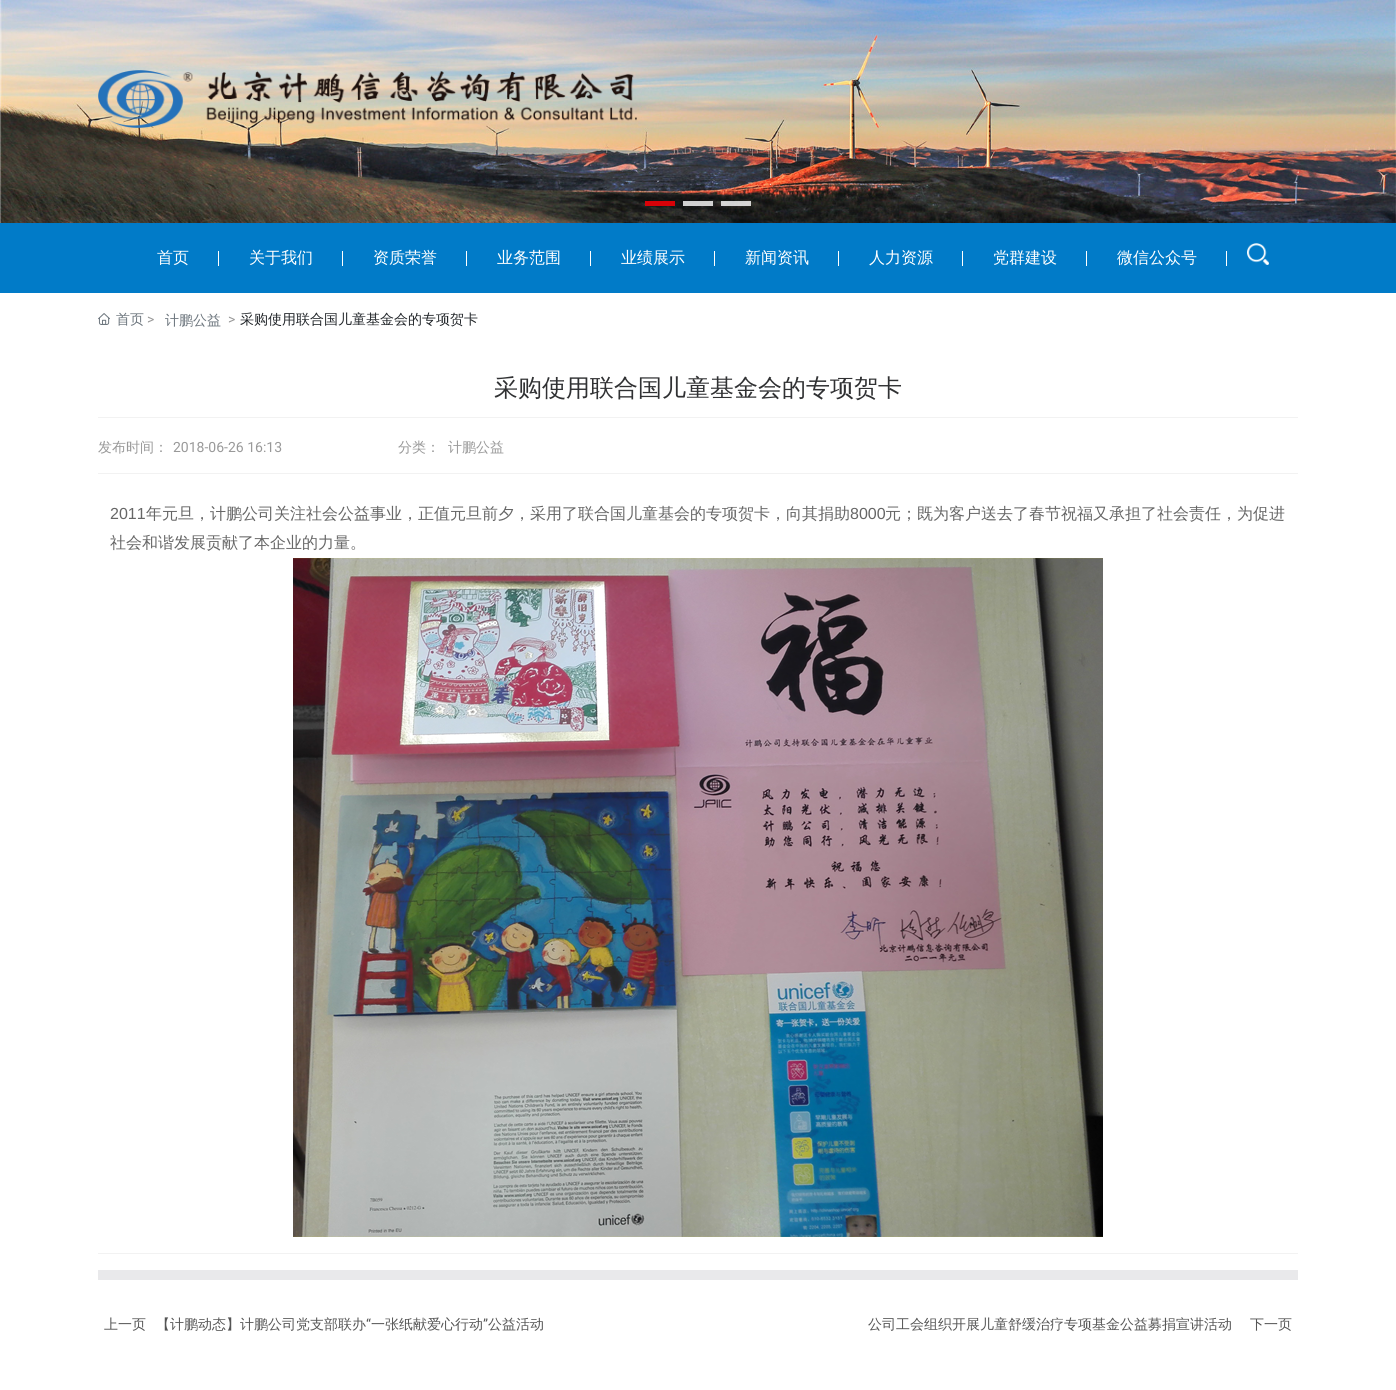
import math
import cairo

surface = cairo.ImageSurface(cairo.FORMAT_RGB24, 1396, 1390)
c = cairo.Context(surface)
options = cairo.FontOptions()
options.set_hint_metrics(cairo.HINT_METRICS_OFF)
options.set_hint_style(cairo.HINT_STYLE_NONE)
c.set_font_options(options)
c.set_miter_limit(4)
def C(code):
 c.set_source_rgb(*(v / 255 for v in bytes.fromhex(code[-6:])))
def F(family, size, italic, bold):
 c.select_font_face(family, cairo.FONT_SLANT_ITALIC if italic else cairo.FONT_SLANT_NORMAL, cairo.FONT_WEIGHT_BOLD if bold else cairo.FONT_WEIGHT_NORMAL)
 c.set_font_size(size)
def T(x, y, s):
 c.move_to(x, y)
 c.show_text(s)
def R(x, y, w, h):
 c.rectangle(x, y, w, h)
 c.fill()
def I(path, x, y, w, h):
 c.save()
 c.set_source_surface(cairo.ImageSurface.create_from_png(path), x, y)
 c.rectangle(x, y, w, h)
 c.fill()
 c.restore()
C('ffffff')
c.paint()
I('1.png',0,0,1396,223)
C('d80208')
R(645,201,30,5)
c.set_source_rgba(1,1,1,0.8)
R(683,201,30,5)
R(721,201,30,5)
I('2.png',98,70,539,58)
C('017bc8')
R(0,223,1396,70)
F('WenQuanYi Zen Hei Medium',16,0,0)
C('ffffff')
T(157,263,'首页')
R(218,251,1,15)
T(249,263,'关于我们')
R(342,251,1,15)
T(373,263,'资质荣誉')
R(466,251,1,15)
T(497,263,'业务范围')
R(590,251,1,15)
T(621,263,'业绩展示')
R(714,251,1,15)
T(745,263,'新闻资讯')
R(838,251,1,15)
T(869,263,'人力资源')
R(962,251,1,15)
T(993,263,'党群建设')
R(1086,251,1,15)
T(1117,263,'微信公众号')
R(1226,251,1,15)
I('3.png',1247,243,22,22)
I('4.png',98,313,12,12)
F('WenQuanYi Zen Hei Medium',14,0,0)
C('6c757d')
T(116,324,'首页')
F('Roboto',14,0,0)
C('999999')
T(147,324,'>')
F('WenQuanYi Zen Hei Medium',14,0,0)
C('6c757d')
T(165,325,'计鹏公益')
F('Roboto',14,0,0)
C('999999')
T(228,324,'>')
F('WenQuanYi Zen Hei Medium',14,0,0)
C('212529')
T(240,324,'采购使用联合国儿童基金会的专项贺卡')
F('WenQuanYi Zen Hei Medium',24,0,0)
C('303133')
T(494,396,'采购使用联合国儿童基金会的专项贺卡')
C('f2f2f2')
R(98,417,1200,1)
F('WenQuanYi Zen Hei Medium',14,0,0)
C('999999')
T(98,452,'发布时间：')
F('Roboto',14,0,0)
T(173,452,'2018-06-26 16:13')
F('WenQuanYi Zen Hei Medium',14,0,0)
T(398,452,'分类：')
T(448,452,'计鹏公益')
C('f2f2f2')
R(98,473,1200,1)
F('Liberation Sans',16,0,0)
C('666666')
T(110,519,'2011')
F('WenQuanYi Zen Hei Medium',16,0,0)
T(146,519,'年元旦，计鹏公司关注社会公益事业，正值元旦前夕，采用了联合国儿童基会的专项贺卡，向其捐助')
F('Liberation Sans',16,0,0)
T(850,519,'8000')
F('WenQuanYi Zen Hei Medium',16,0,0)
T(885,519,'元；既为客户送去了春节祝福又承担了社会责任，为促进')
T(110,548,'社会和谐发展贡献了本企业的力量。')
I('5.png',293,558,810,679)
C('f2f2f2')
R(98,1253,1200,1)
C('e9e9eb')
R(98,1270,1200,10)
F('WenQuanYi Zen Hei Medium',14,0,0)
C('555555')
T(104,1329,'上一页')
T(156,1329,'【计鹏动态】计鹏公司党支部联办')
F('Roboto',14,0,0)
T(366,1329,'“')
F('WenQuanYi Zen Hei Medium',14,0,0)
T(371,1329,'一张纸献爱心行动')
F('Roboto',14,0,0)
T(483,1329,'”')
F('WenQuanYi Zen Hei Medium',14,0,0)
T(488,1329,'公益活动')
T(868,1329,'公司工会组织开展儿童舒缓治疗专项基金公益募捐宣讲活动')
T(1250,1329,'下一页')
surface.write_to_png('o.png')
